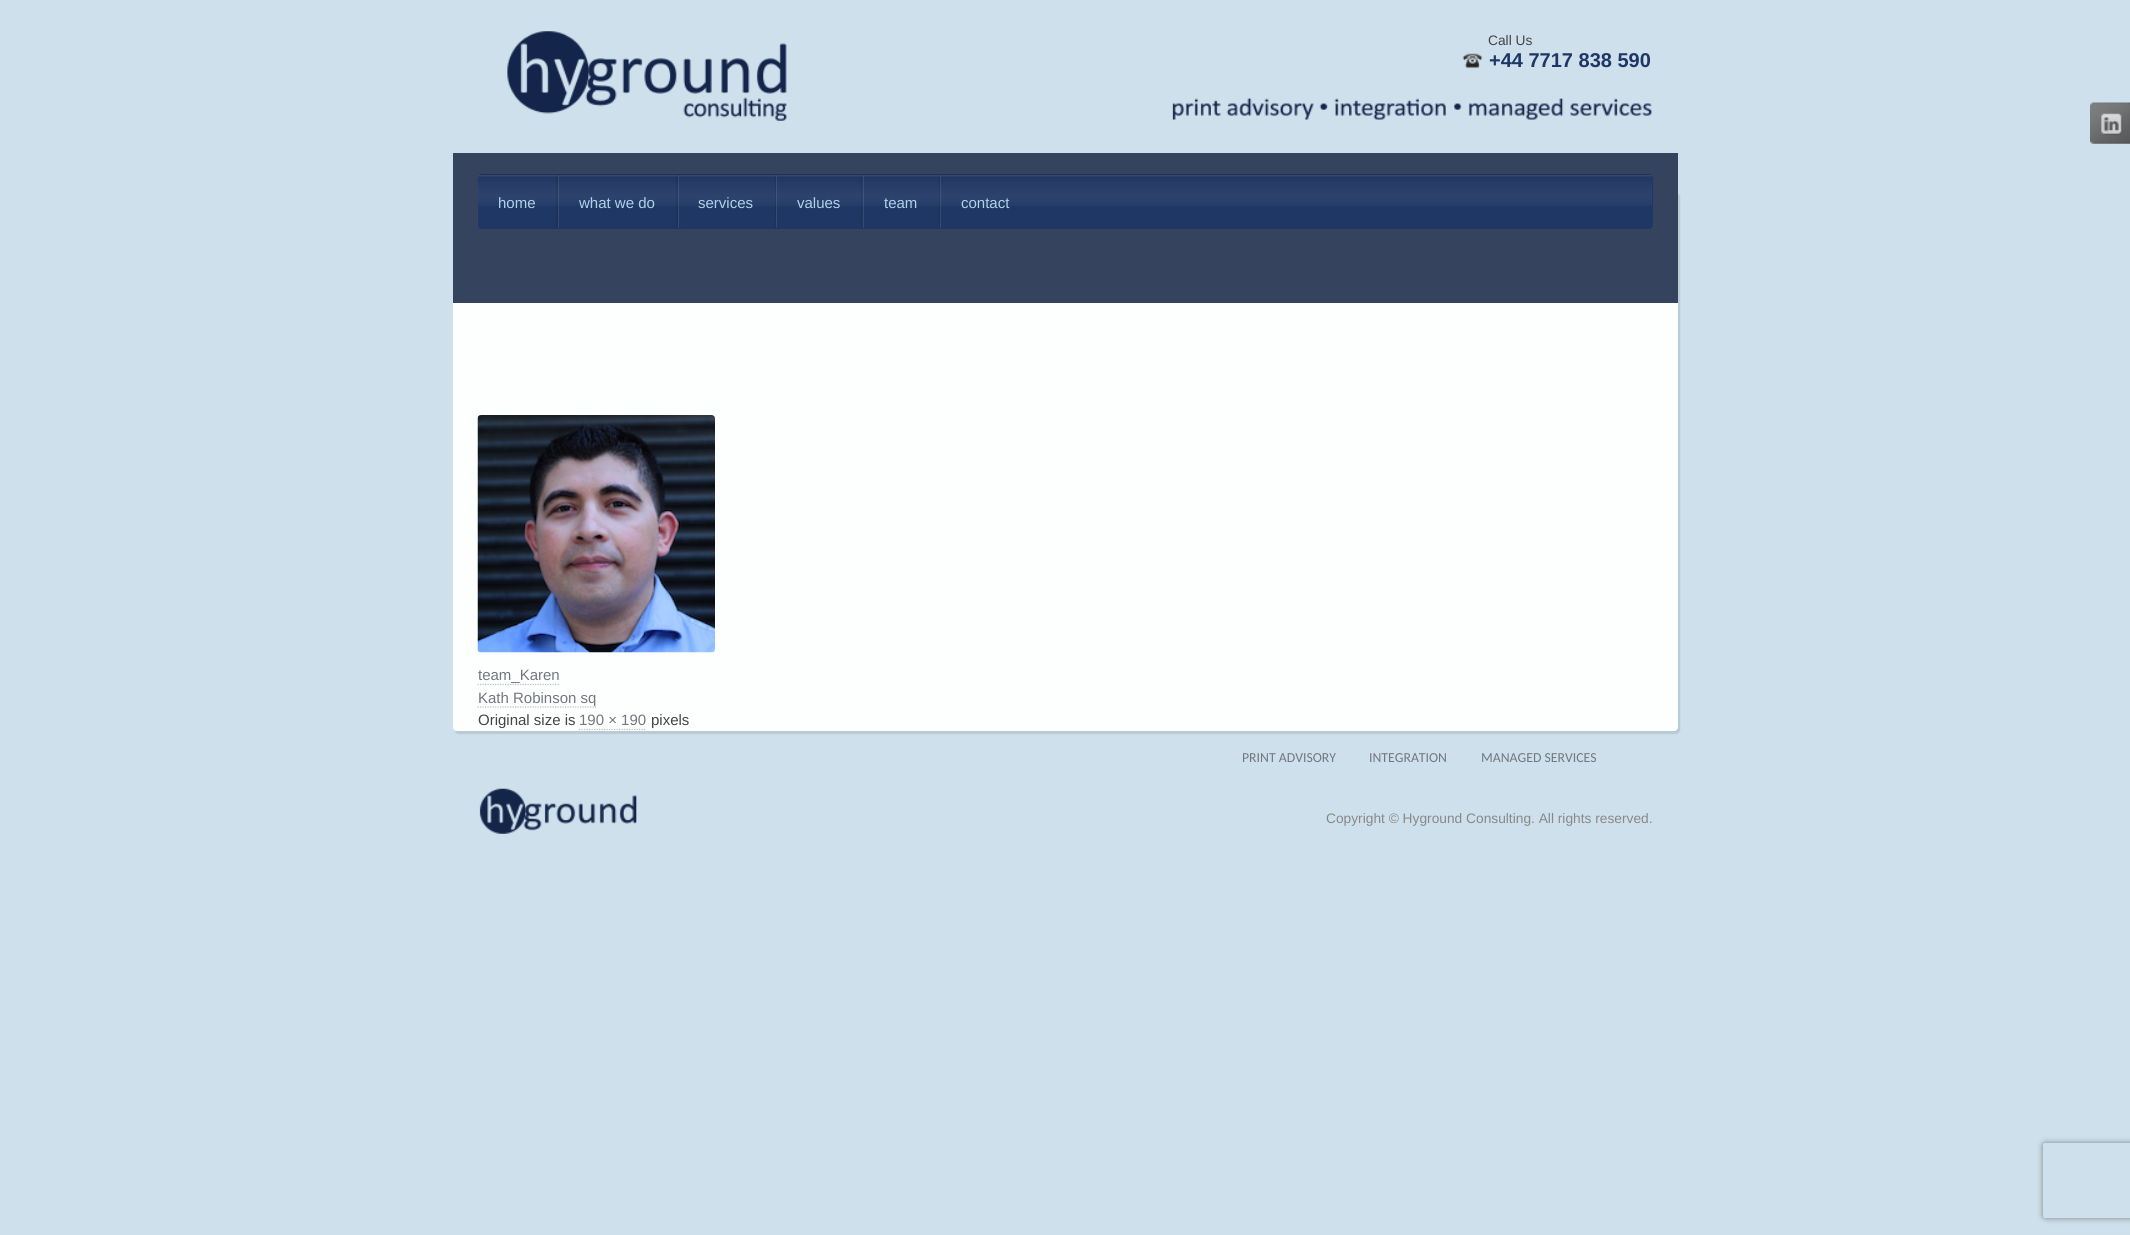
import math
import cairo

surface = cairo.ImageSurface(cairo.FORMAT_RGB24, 2130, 1235)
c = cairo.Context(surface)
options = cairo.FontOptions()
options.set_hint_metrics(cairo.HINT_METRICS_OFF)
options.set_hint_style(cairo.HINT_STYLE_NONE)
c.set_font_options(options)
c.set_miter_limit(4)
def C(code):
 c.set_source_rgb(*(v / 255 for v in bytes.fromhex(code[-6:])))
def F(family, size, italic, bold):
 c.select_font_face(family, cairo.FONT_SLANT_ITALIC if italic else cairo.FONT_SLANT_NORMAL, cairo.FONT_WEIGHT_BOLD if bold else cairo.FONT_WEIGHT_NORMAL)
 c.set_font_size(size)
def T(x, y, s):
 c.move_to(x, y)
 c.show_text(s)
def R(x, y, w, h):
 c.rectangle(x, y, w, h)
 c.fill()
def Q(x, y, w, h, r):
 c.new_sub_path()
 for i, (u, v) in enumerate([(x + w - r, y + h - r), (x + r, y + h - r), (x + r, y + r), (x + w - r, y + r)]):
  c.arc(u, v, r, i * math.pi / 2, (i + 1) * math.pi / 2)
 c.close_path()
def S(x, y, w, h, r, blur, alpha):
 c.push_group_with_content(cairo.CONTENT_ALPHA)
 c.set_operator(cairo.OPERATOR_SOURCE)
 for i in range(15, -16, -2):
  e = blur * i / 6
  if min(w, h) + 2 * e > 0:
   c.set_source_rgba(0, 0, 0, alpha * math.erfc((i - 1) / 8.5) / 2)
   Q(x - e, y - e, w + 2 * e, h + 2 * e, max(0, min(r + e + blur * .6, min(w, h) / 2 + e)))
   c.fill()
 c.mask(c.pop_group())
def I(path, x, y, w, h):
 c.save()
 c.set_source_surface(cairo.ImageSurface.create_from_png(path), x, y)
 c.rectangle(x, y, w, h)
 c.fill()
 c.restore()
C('cee0ec')
c.paint()
I('1.png',507,31,1145,90)
F('Liberation Sans',13.75,0,0)
C('444444')
T(1488,45,'Call Us')
I('2.png',1462,53,21,16)
F('Liberation Sans',20,0,1)
C('1f3765')
T(1489,67,'+44 7717 838 590')
c.save()
c.set_fill_rule(cairo.FILL_RULE_EVEN_ODD)
c.new_path()
c.move_to(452,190)
c.line_to(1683,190)
c.line_to(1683,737)
c.line_to(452,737)
c.close_path()
c.move_to(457,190)
c.line_to(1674,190)
c.curve_to(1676,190,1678,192,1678,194)
c.line_to(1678,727)
c.curve_to(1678,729,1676,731,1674,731)
c.line_to(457,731)
c.curve_to(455,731,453,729,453,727)
c.line_to(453,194)
c.curve_to(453,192,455,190,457,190)
c.close_path()
c.clip()
C('000000')
S(455,193,1225,541,4,.5,.1)
c.restore()
c.set_source_rgba(1,1,1,0.95)
Q(453,190,1225,541,4)
c.fill()
C('36435f')
R(453,153,1225,150)
C('1f3765')
Q(478,174,1175,55,4)
c.fill()
I('3.png',478,174,1174,32)
F('Arimo',15,0,0)
C('afd2ea')
T(498,208,'home')
c.set_source_rgba(0,0,0,0.1)
c.new_path()
c.move_to(560,174)
c.curve_to(554,174,556,183,556,186)
c.line_to(556,217)
c.curve_to(556,220,554,229,560,229)
c.line_to(673,229)
c.line_to(561,229)
c.curve_to(559,229,558,227,558,225)
c.line_to(558,178)
c.curve_to(558,176,558,175,560,174)
c.close_path()
c.fill()
c.set_source_rgba(1,1,1,0.1)
R(558,176,1,52)
C('afd2ea')
T(579,208,'what we do')
c.set_source_rgba(0,0,0,0.1)
c.new_path()
c.move_to(680,174)
c.curve_to(674,174,676,183,676,186)
c.line_to(676,217)
c.curve_to(676,233,677,229,695,229)
c.line_to(772,229)
c.line_to(681,229)
c.curve_to(679,229,678,227,678,225)
c.line_to(678,178)
c.curve_to(678,176,678,175,680,174)
c.close_path()
c.fill()
c.set_source_rgba(1,1,1,0.1)
R(678,176,1,52)
C('afd2ea')
T(698,208,'services')
c.set_source_rgba(0,0,0,0.1)
c.new_path()
c.move_to(779,174)
c.curve_to(773,175,775,183,775,186)
c.line_to(775,217)
c.curve_to(775,220,773,229,779,229)
c.line_to(858,229)
c.line_to(780,229)
c.curve_to(778,229,776,227,776,225)
c.line_to(776,178)
c.curve_to(776,176,777,175,779,174)
c.close_path()
c.fill()
c.set_source_rgba(1,1,1,0.1)
R(776,176,1,52)
C('afd2ea')
T(797,208,'values')
c.set_source_rgba(0,0,0,0.1)
c.new_path()
c.move_to(865,174)
c.curve_to(859,174,861,183,861,186)
c.line_to(861,217)
c.curve_to(861,220,859,229,865,229)
c.line_to(936,229)
c.line_to(866,229)
c.curve_to(864,229,862,227,862,225)
c.line_to(862,178)
c.curve_to(862,176,863,175,865,174)
c.close_path()
c.fill()
c.set_source_rgba(1,1,1,0.1)
R(863,176,1,52)
C('afd2ea')
T(884,208,'team')
c.set_source_rgba(0,0,0,0.1)
c.new_path()
c.move_to(942,174)
c.curve_to(937,175,939,183,939,186)
c.line_to(939,217)
c.curve_to(939,232,940,229,957,229)
c.line_to(1026,229)
c.line_to(944,229)
c.curve_to(942,229,940,227,940,225)
c.line_to(940,178)
c.curve_to(940,176,941,175,942,174)
c.close_path()
c.fill()
c.set_source_rgba(1,1,1,0.1)
R(940,176,1,52)
C('afd2ea')
T(961,208,'contact')
I('4.png',477,415,238,238)
F('Liberation Sans',15,0,0)
C('74777e')
T(478,680,'team_Karen')
c.new_path()
c.move_to(477.5,684.5)
c.line_to(559,684.5)
C('bebfc1')
c.set_line_width(1.2)
c.set_dash([1.25,1.25])
c.stroke()
c.new_path()
c.move_to(477.5,707)
c.line_to(596,707)
c.stroke()
C('74777e')
T(478,703,'Kath Robinson sq')
C('444444')
T(478,725,'Original size is')
C('74777e')
T(579,725,'190 × 190')
c.new_path()
c.move_to(579,729.5)
c.line_to(646,729.5)
C('bebfc1')
c.stroke()
C('444444')
T(651,725,'pixels')
F('Carlito',13.75,0,0)
C('74777e')
T(1242,762,'PRINT ADVISORY')
T(1369,762,'INTEGRATION')
T(1481,762,'MANAGED SERVICES')
I('5.png',479,788,158,46)
F('Liberation Sans',13.75,0,0)
C('888888')
T(1326,823,'Copyright © Hyground Consulting. All rights reserved.')
I('6.png',2090,102,40,42)
c.save()
c.set_fill_rule(cairo.FILL_RULE_EVEN_ODD)
c.new_path()
c.move_to(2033,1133)
c.line_to(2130,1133)
c.line_to(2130,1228)
c.line_to(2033,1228)
c.close_path()
c.move_to(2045.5,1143)
c.line_to(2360.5,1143)
c.curve_to(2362,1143,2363,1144,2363,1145.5)
c.line_to(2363,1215.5)
c.curve_to(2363,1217,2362,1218,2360.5,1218)
c.line_to(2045.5,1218)
c.curve_to(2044,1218,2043,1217,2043,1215.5)
c.line_to(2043,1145.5)
c.curve_to(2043,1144,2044,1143,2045.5,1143)
c.close_path()
c.clip()
C('808080')
S(2043,1143,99,75,2.5,3,1)
c.restore()
surface.write_to_png('o.png')
